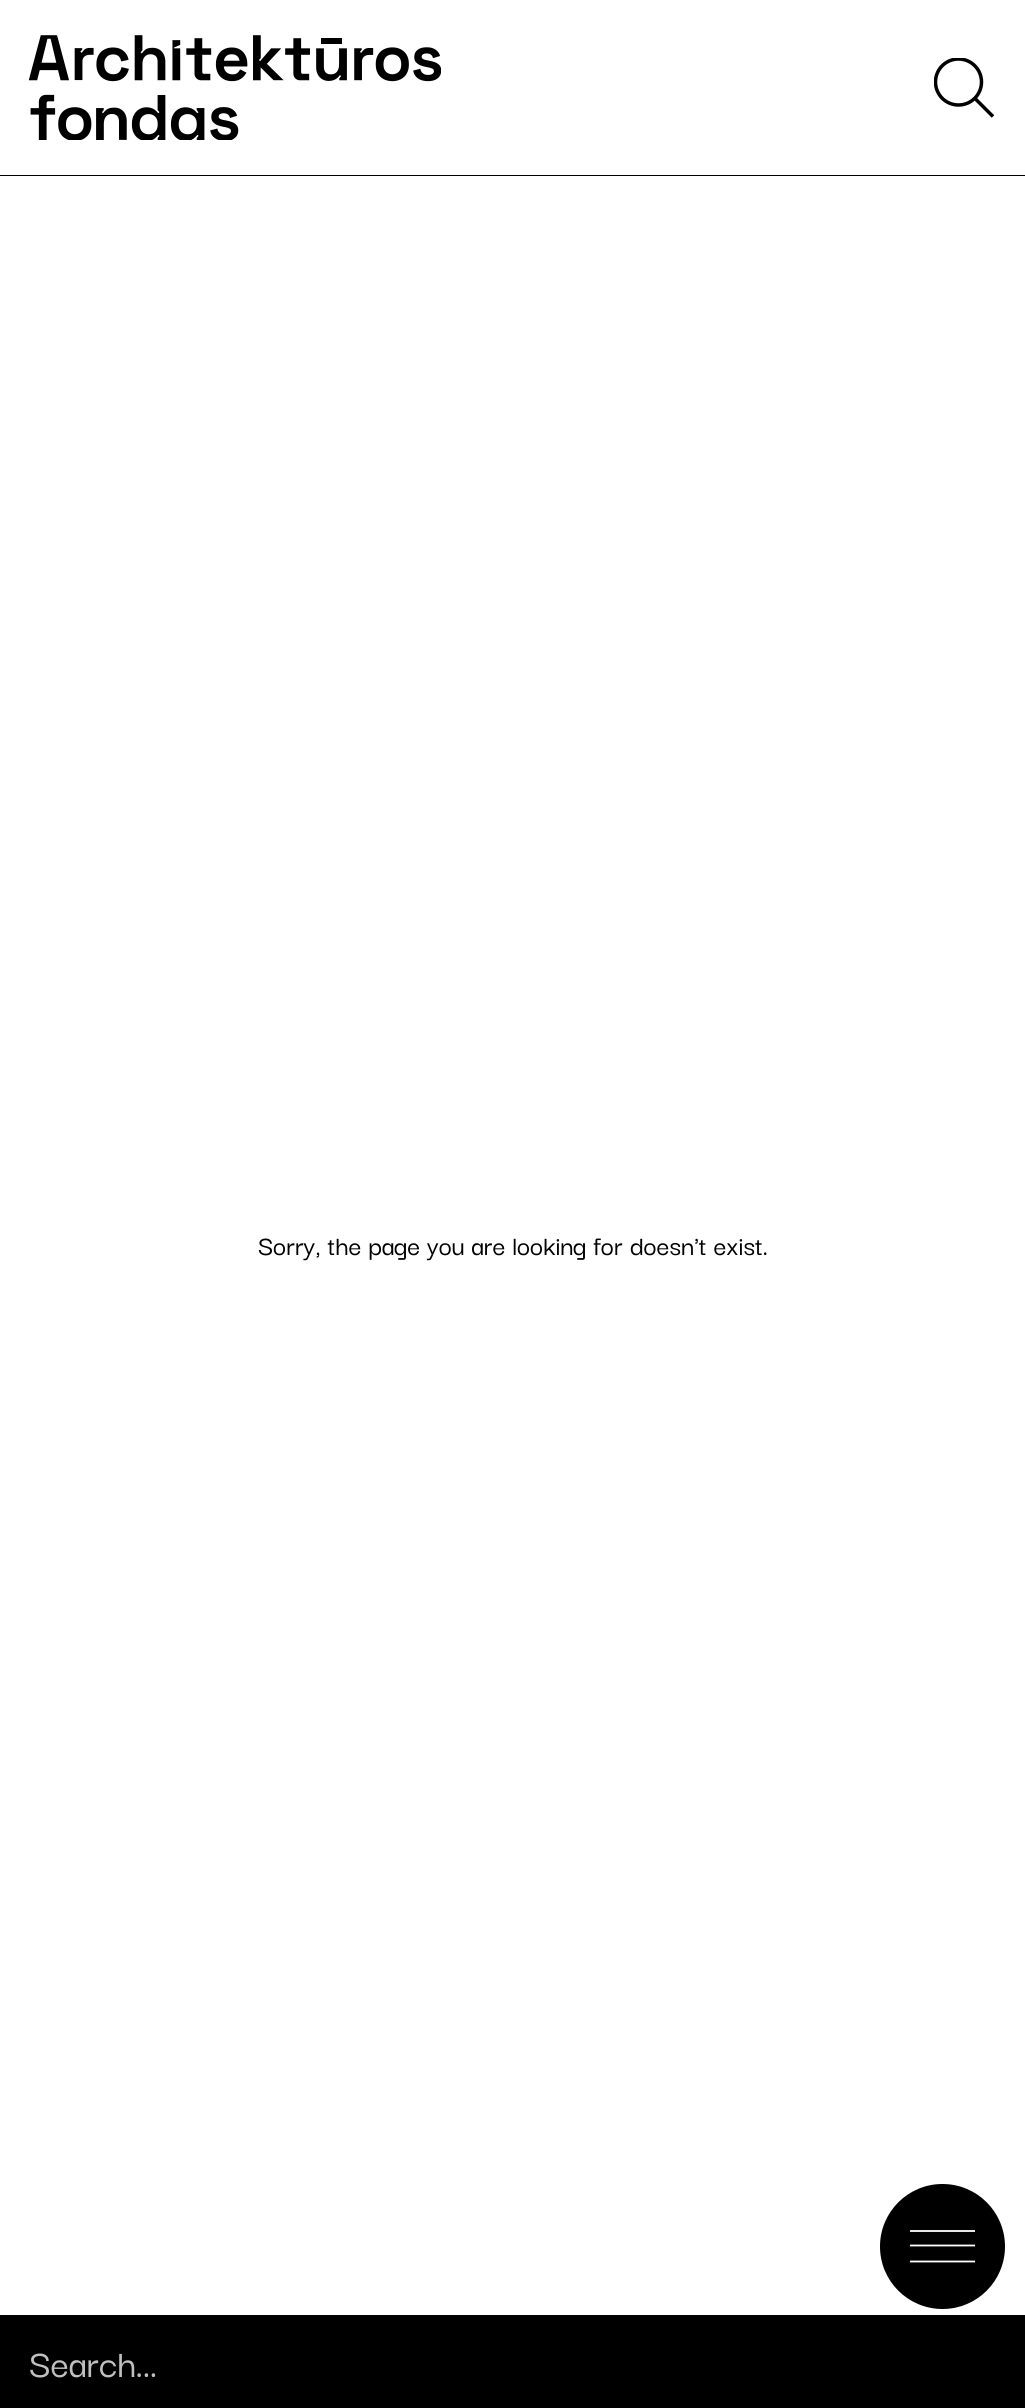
import math
import cairo

surface = cairo.ImageSurface(cairo.FORMAT_RGB24, 1025, 2408)
c = cairo.Context(surface)
options = cairo.FontOptions()
options.set_hint_metrics(cairo.HINT_METRICS_OFF)
options.set_hint_style(cairo.HINT_STYLE_NONE)
c.set_font_options(options)
c.set_miter_limit(4)
def C(code):
 c.set_source_rgb(*(v / 255 for v in bytes.fromhex(code[-6:])))
def F(family, size, italic, bold):
 c.select_font_face(family, cairo.FONT_SLANT_ITALIC if italic else cairo.FONT_SLANT_NORMAL, cairo.FONT_WEIGHT_BOLD if bold else cairo.FONT_WEIGHT_NORMAL)
 c.set_font_size(size)
def T(x, y, s):
 c.move_to(x, y)
 c.show_text(s)
def R(x, y, w, h):
 c.rectangle(x, y, w, h)
 c.fill()
def I(path, x, y, w, h):
 c.save()
 c.set_source_surface(cairo.ImageSurface.create_from_png(path), x, y)
 c.rectangle(x, y, w, h)
 c.fill()
 c.restore()
C('ffffff')
c.paint()
C('000000')
R(0,175,1025,1)
I('1.png',29,35,412,105)
c.save()
c.rectangle(934,58,62,60)
c.clip()
c.arc(958.5,82,23,0,2 * math.pi)
c.set_line_width(3.5)
c.stroke()
c.restore()
c.new_path()
c.move_to(975.5,99)
c.line_to(993,116.5)
c.set_line_width(3.5)
c.stroke()
F('Darker Grotesque Medium',28.75,0,0)
T(258,1255,'Sorry, the page you are looking for doesn\'t exist.')
R(0,2315,1025,93)
F('Darker Grotesque Medium',41,0,0)
C('c0c0c0')
T(29,2377,'Search...')
C('000000')
c.new_path()
c.arc(942.5,2246.5,62.5,0,2 * math.pi)
c.fill()
c.new_path()
c.move_to(910,2261.5)
c.line_to(975,2261.5)
C('ffffff')
c.set_line_width(1.8)
c.stroke()
c.new_path()
c.move_to(910,2245.5)
c.line_to(975,2245.5)
c.stroke()
C('e6e6e6')
R(910,2230,65,2)
surface.write_to_png('o.png')
